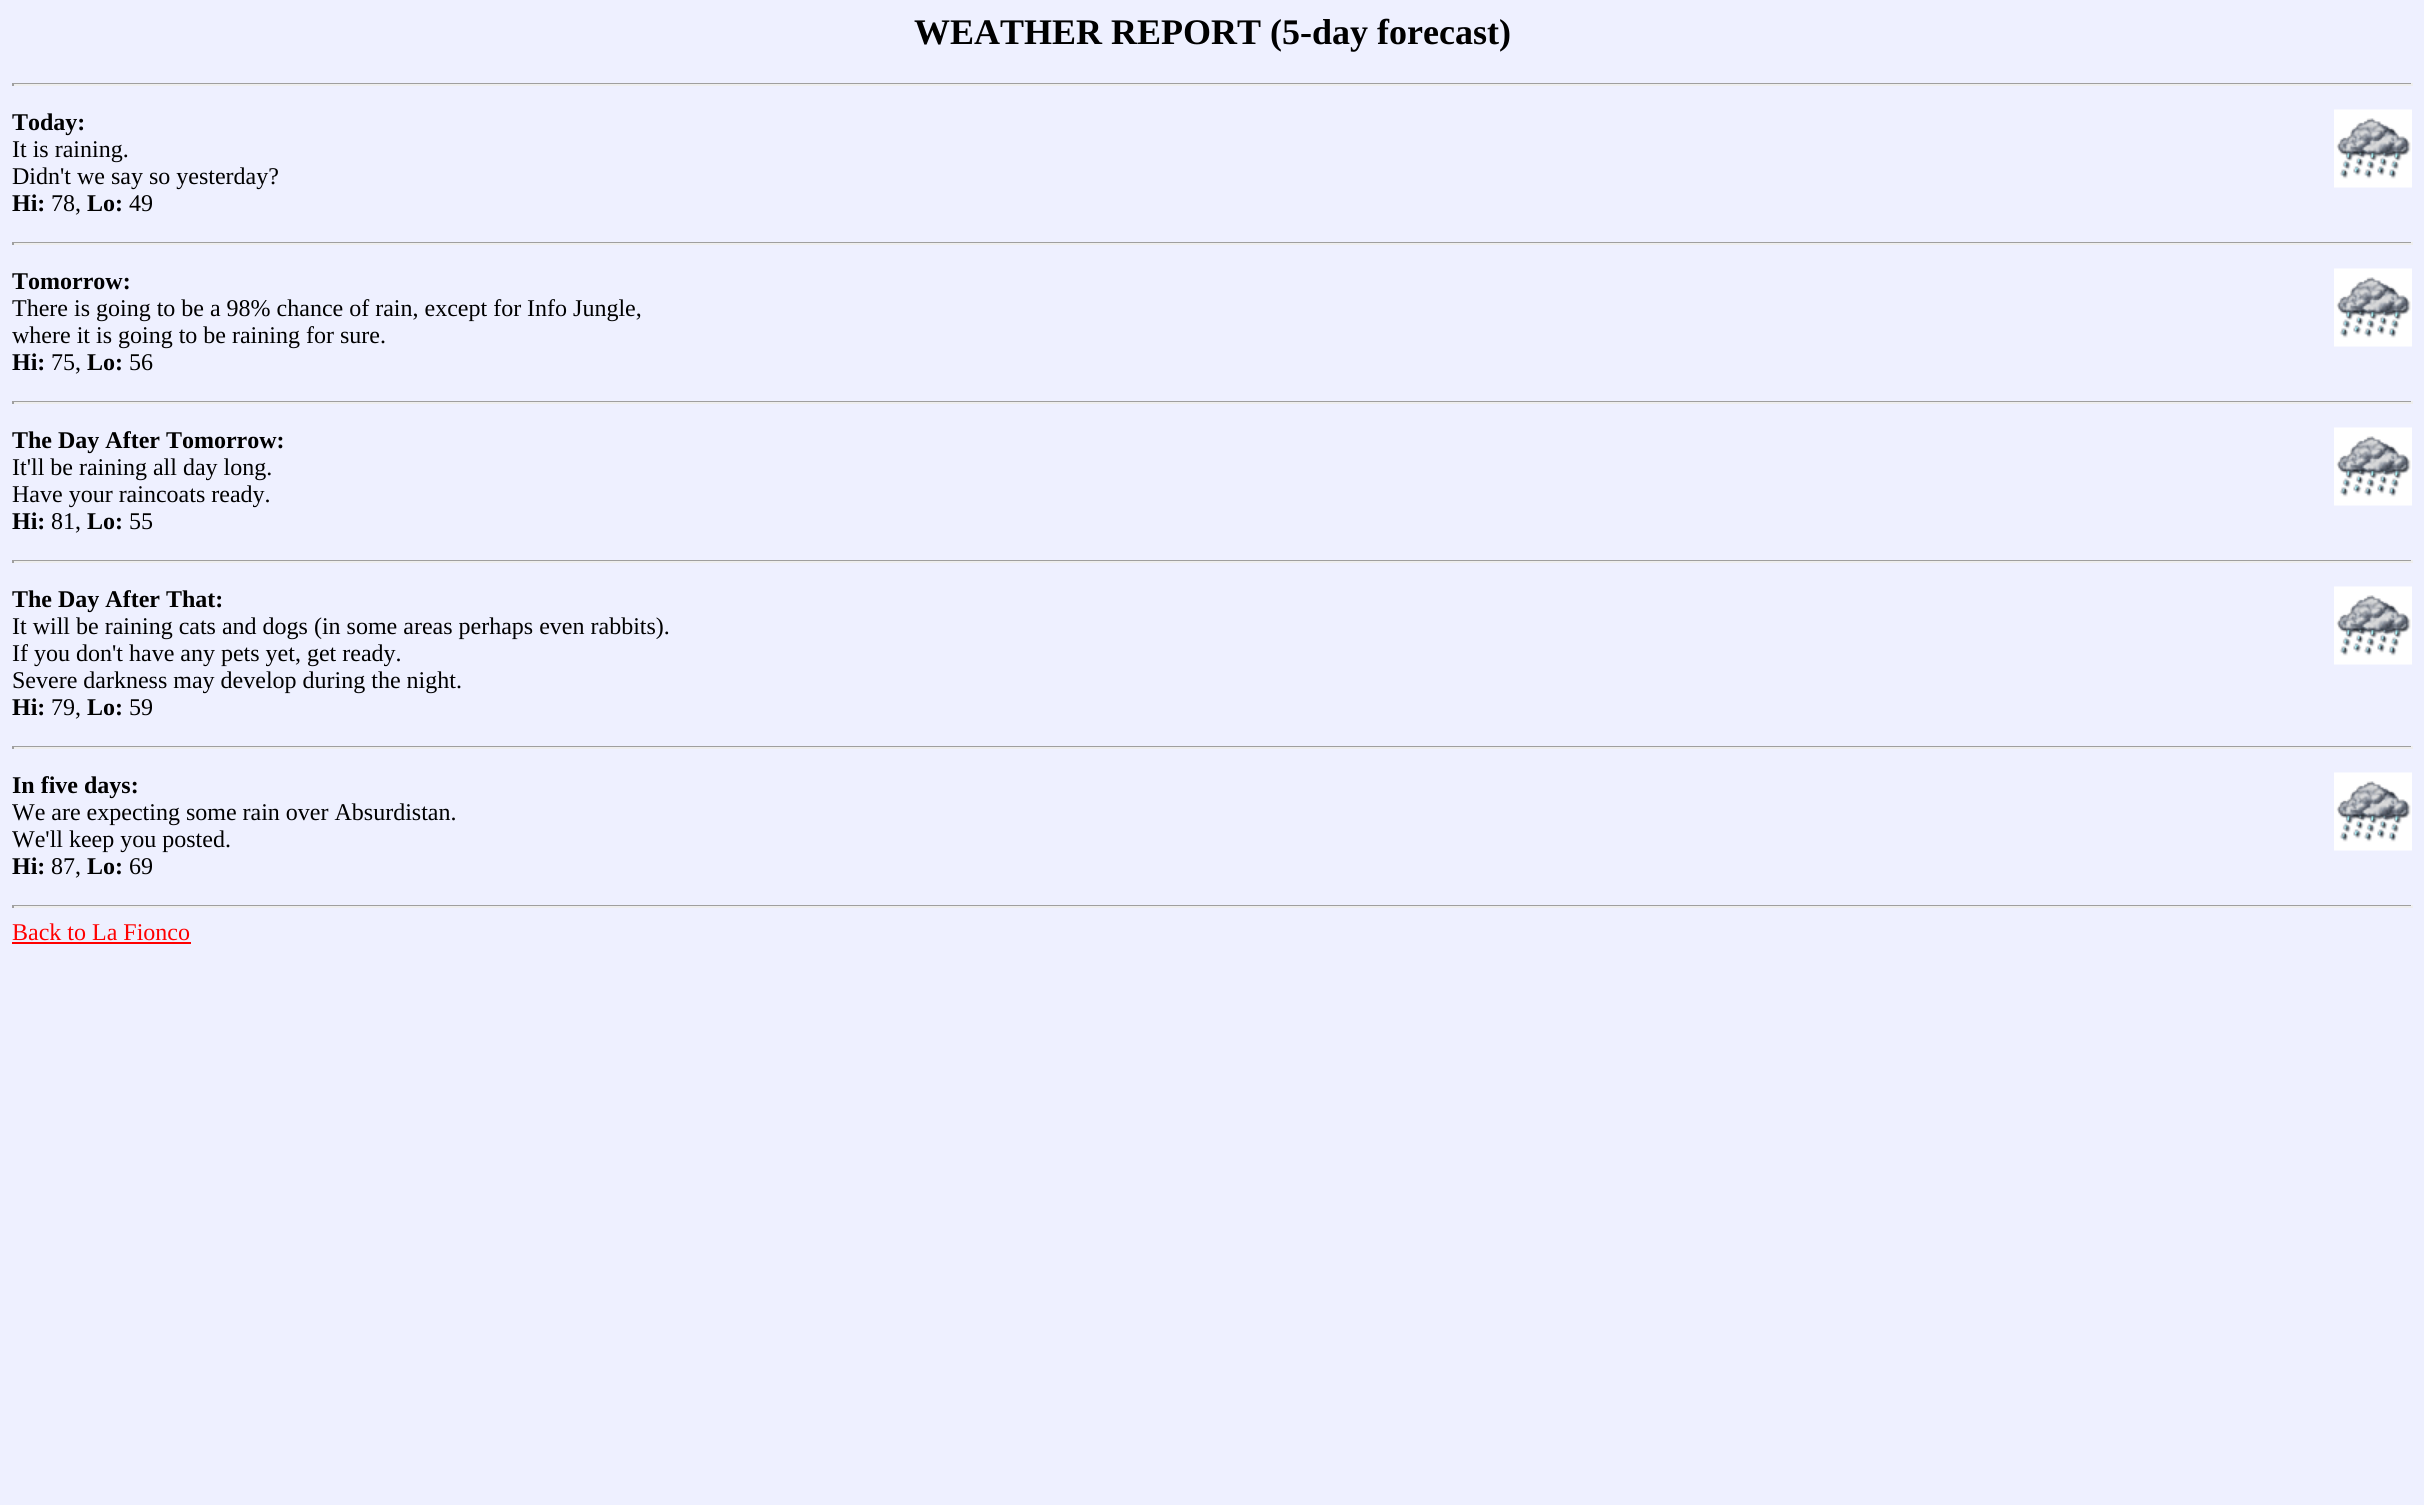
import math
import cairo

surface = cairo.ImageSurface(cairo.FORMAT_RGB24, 2424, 1505)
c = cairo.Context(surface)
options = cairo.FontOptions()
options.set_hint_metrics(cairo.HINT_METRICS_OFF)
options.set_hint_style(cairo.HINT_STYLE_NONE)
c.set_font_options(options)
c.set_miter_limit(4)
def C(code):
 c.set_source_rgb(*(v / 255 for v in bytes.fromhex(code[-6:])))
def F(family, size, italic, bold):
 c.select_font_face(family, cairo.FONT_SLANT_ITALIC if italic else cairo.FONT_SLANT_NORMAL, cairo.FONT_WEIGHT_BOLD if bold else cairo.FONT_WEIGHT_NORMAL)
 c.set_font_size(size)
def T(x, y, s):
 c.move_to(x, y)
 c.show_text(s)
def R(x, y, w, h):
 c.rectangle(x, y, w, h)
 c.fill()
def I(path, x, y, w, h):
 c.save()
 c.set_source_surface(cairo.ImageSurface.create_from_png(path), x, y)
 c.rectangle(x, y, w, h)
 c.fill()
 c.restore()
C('eef0ff')
c.paint()
F('Liberation Serif',36,0,1)
C('000000')
T(914,44,'WEATHER REPORT (5-day forecast)')
C('9f9f9f')
R(12,83,2400,1)
C('eeeeee')
R(2411,83,2,3)
R(12,84,2400,2)
C('9f9f9f')
R(12,83,2,3)
F('Liberation Serif',24,0,1)
C('000000')
T(12,130,'Today:')
I('1.png',2334,109,78,79)
F('Liberation Serif',24,0,0)
T(12,157,'It is raining.')
T(12,184,'Didn\'t we say so yesterday?')
F('Liberation Serif',24,0,1)
T(12,211,'Hi:')
F('Liberation Serif',24,0,0)
T(51,211,'78,')
F('Liberation Serif',24,0,1)
T(87,211,'Lo:')
F('Liberation Serif',24,0,0)
T(129,211,'49')
C('9f9f9f')
R(12,242,2400,1)
C('eeeeee')
R(2411,242,2,3)
R(12,243,2400,2)
C('9f9f9f')
R(12,242,2,3)
F('Liberation Serif',24,0,1)
C('000000')
T(12,289,'Tomorrow:')
I('1.png',2334,268,78,79)
F('Liberation Serif',24,0,0)
T(12,316,'There is going to be a 98% chance of rain, except for Info Jungle,')
T(12,343,'where it is going to be raining for sure.')
F('Liberation Serif',24,0,1)
T(12,370,'Hi:')
F('Liberation Serif',24,0,0)
T(51,370,'75,')
F('Liberation Serif',24,0,1)
T(87,370,'Lo:')
F('Liberation Serif',24,0,0)
T(129,370,'56')
C('9f9f9f')
R(12,401,2400,1)
C('eeeeee')
R(2411,401,2,3)
R(12,402,2400,2)
C('9f9f9f')
R(12,401,2,3)
F('Liberation Serif',24,0,1)
C('000000')
T(12,448,'The Day After Tomorrow:')
I('1.png',2334,427,78,79)
F('Liberation Serif',24,0,0)
T(12,475,'It\'ll be raining all day long.')
T(12,502,'Have your raincoats ready.')
F('Liberation Serif',24,0,1)
T(12,529,'Hi:')
F('Liberation Serif',24,0,0)
T(51,529,'81,')
F('Liberation Serif',24,0,1)
T(87,529,'Lo:')
F('Liberation Serif',24,0,0)
T(129,529,'55')
C('9f9f9f')
R(12,560,2400,1)
C('eeeeee')
R(2411,560,2,3)
R(12,561,2400,2)
C('9f9f9f')
R(12,560,2,3)
F('Liberation Serif',24,0,1)
C('000000')
T(12,607,'The Day After That:')
I('1.png',2334,586,78,79)
F('Liberation Serif',24,0,0)
T(12,634,'It will be raining cats and dogs (in some areas perhaps even rabbits).')
T(12,661,'If you don\'t have any pets yet, get ready.')
T(12,688,'Severe darkness may develop during the night.')
F('Liberation Serif',24,0,1)
T(12,715,'Hi:')
F('Liberation Serif',24,0,0)
T(51,715,'79,')
F('Liberation Serif',24,0,1)
T(87,715,'Lo:')
F('Liberation Serif',24,0,0)
T(129,715,'59')
C('9f9f9f')
R(12,746,2400,1)
C('eeeeee')
R(2411,746,2,3)
R(12,747,2400,2)
C('9f9f9f')
R(12,746,2,3)
F('Liberation Serif',24,0,1)
C('000000')
T(12,793,'In five days:')
I('1.png',2334,772,78,79)
F('Liberation Serif',24,0,0)
T(12,820,'We are expecting some rain over Absurdistan.')
T(12,847,'We\'ll keep you posted.')
F('Liberation Serif',24,0,1)
T(12,874,'Hi:')
F('Liberation Serif',24,0,0)
T(51,874,'87,')
F('Liberation Serif',24,0,1)
T(87,874,'Lo:')
F('Liberation Serif',24,0,0)
T(129,874,'69')
C('9f9f9f')
R(12,905,2400,1)
C('eeeeee')
R(2411,905,2,3)
R(12,906,2400,2)
C('9f9f9f')
R(12,905,2,3)
C('ff0000')
T(12,940,'Back to La Fionco')
R(12,942,179,2)
surface.write_to_png('o.png')
